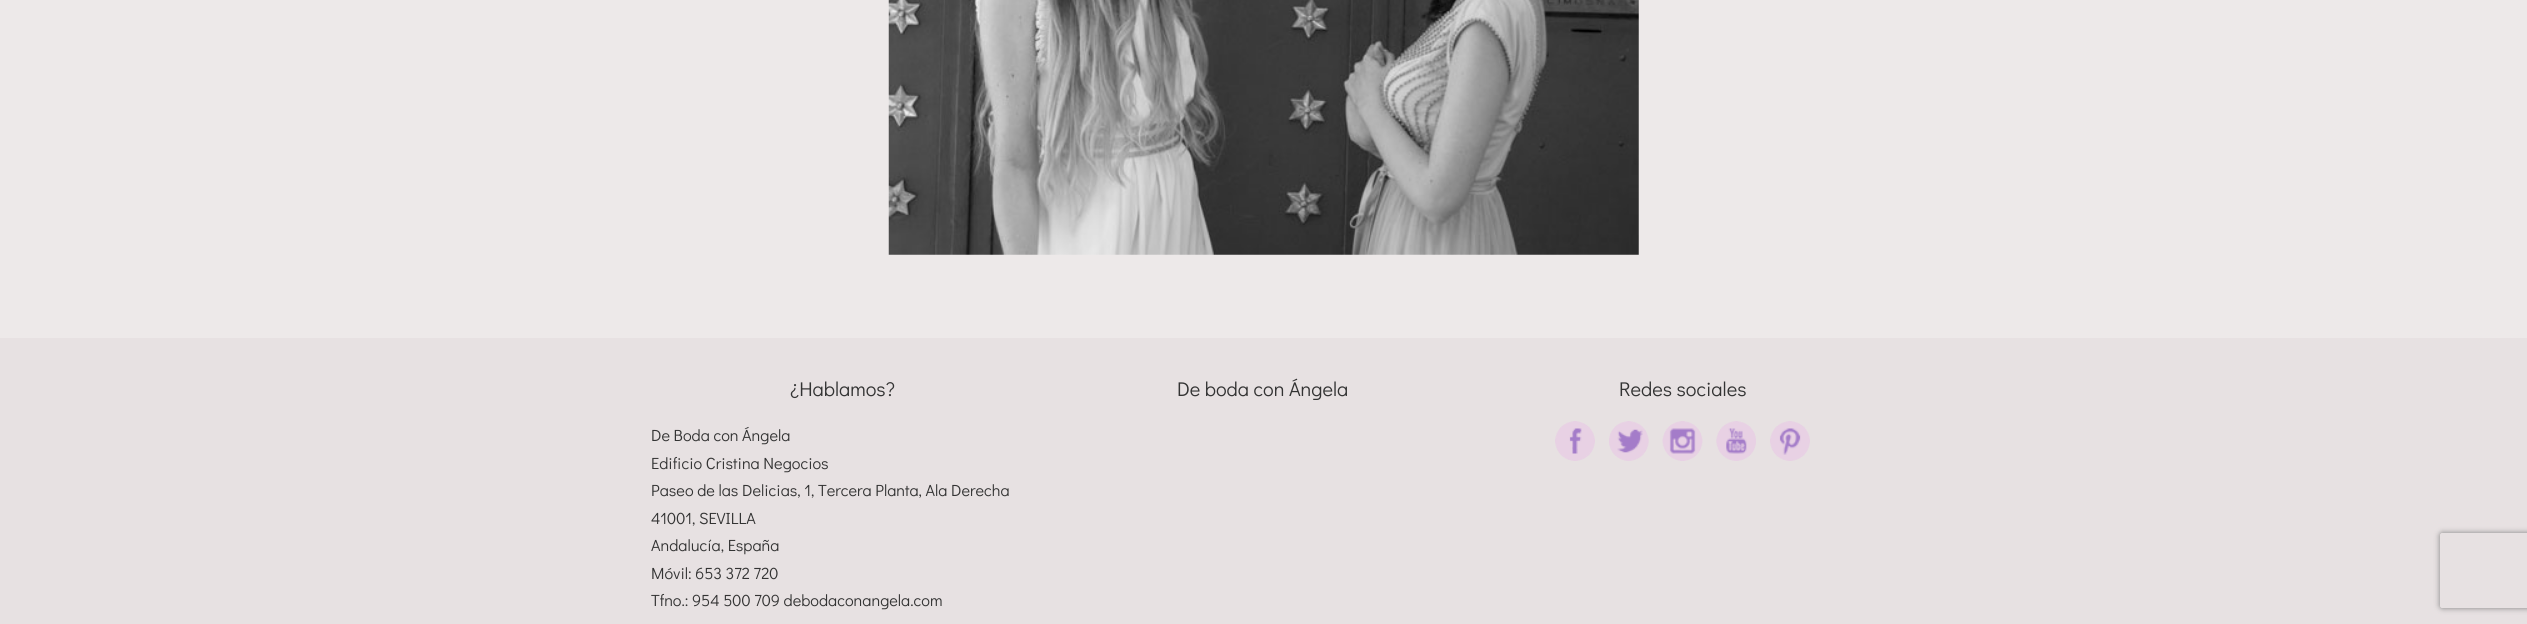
import math
import cairo

surface = cairo.ImageSurface(cairo.FORMAT_RGB24, 2527, 624)
c = cairo.Context(surface)
options = cairo.FontOptions()
options.set_hint_metrics(cairo.HINT_METRICS_OFF)
options.set_hint_style(cairo.HINT_STYLE_NONE)
c.set_font_options(options)
c.set_miter_limit(4)
def C(code):
 c.set_source_rgb(*(v / 255 for v in bytes.fromhex(code[-6:])))
def F(family, size, italic, bold):
 c.select_font_face(family, cairo.FONT_SLANT_ITALIC if italic else cairo.FONT_SLANT_NORMAL, cairo.FONT_WEIGHT_BOLD if bold else cairo.FONT_WEIGHT_NORMAL)
 c.set_font_size(size)
def T(x, y, s):
 c.move_to(x, y)
 c.show_text(s)
def R(x, y, w, h):
 c.rectangle(x, y, w, h)
 c.fill()
def Q(x, y, w, h, r):
 c.new_sub_path()
 for i, (u, v) in enumerate([(x + w - r, y + h - r), (x + r, y + h - r), (x + r, y + r), (x + w - r, y + r)]):
  c.arc(u, v, r, i * math.pi / 2, (i + 1) * math.pi / 2)
 c.close_path()
def S(x, y, w, h, r, blur, alpha):
 c.push_group_with_content(cairo.CONTENT_ALPHA)
 c.set_operator(cairo.OPERATOR_SOURCE)
 for i in range(15, -16, -2):
  e = blur * i / 6
  if min(w, h) + 2 * e > 0:
   c.set_source_rgba(0, 0, 0, alpha * math.erfc((i - 1) / 8.5) / 2)
   Q(x - e, y - e, w + 2 * e, h + 2 * e, max(0, min(r + e + blur * .6, min(w, h) / 2 + e)))
   c.fill()
 c.mask(c.pop_group())
def I(path, x, y, w, h):
 c.save()
 c.set_source_surface(cairo.ImageSurface.create_from_png(path), x, y)
 c.rectangle(x, y, w, h)
 c.fill()
 c.restore()
C('ede9e9')
c.paint()
I('1.png',888,0,751,255)
C('e7e1e2')
R(0,338,2527,286)
F('Didact Gothic',20,0,0)
C('333333')
T(790,396,'¿Hablamos?')
F('Didact Gothic',16.25,0,0)
T(651,441,'De Boda con Ángela')
T(651,469,'Edificio Cristina Negocios')
T(651,496,'Paseo de las Delicias, 1, Tercera Planta, Ala Derecha')
T(651,524,'41001, SEVILLA')
T(651,551,'Andalucía, España')
T(651,579,'Móvil: 653 372 720')
T(651,606,'Tfno.: 954 500 709 debodaconangela.com')
F('Didact Gothic',20,0,0)
T(1177,396,'De boda con Ángela')
T(1619,396,'Redes sociales')
I('2.png',1555,421,40,40)
I('3.png',1609,421,40,40)
I('4.png',1662,421,41,40)
I('5.png',1716,421,40,40)
I('6.png',1770,421,40,40)
c.save()
c.set_fill_rule(cairo.FILL_RULE_EVEN_ODD)
c.new_path()
c.move_to(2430,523)
c.line_to(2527,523)
c.line_to(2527,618)
c.line_to(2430,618)
c.close_path()
c.move_to(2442.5,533)
c.line_to(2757.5,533)
c.curve_to(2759,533,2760,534,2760,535.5)
c.line_to(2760,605.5)
c.curve_to(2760,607,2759,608,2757.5,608)
c.line_to(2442.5,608)
c.curve_to(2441,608,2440,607,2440,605.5)
c.line_to(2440,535.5)
c.curve_to(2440,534,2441,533,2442.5,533)
c.close_path()
c.clip()
C('808080')
S(2440,533,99,75,2.5,3,1)
c.restore()
surface.write_to_png('o.png')
